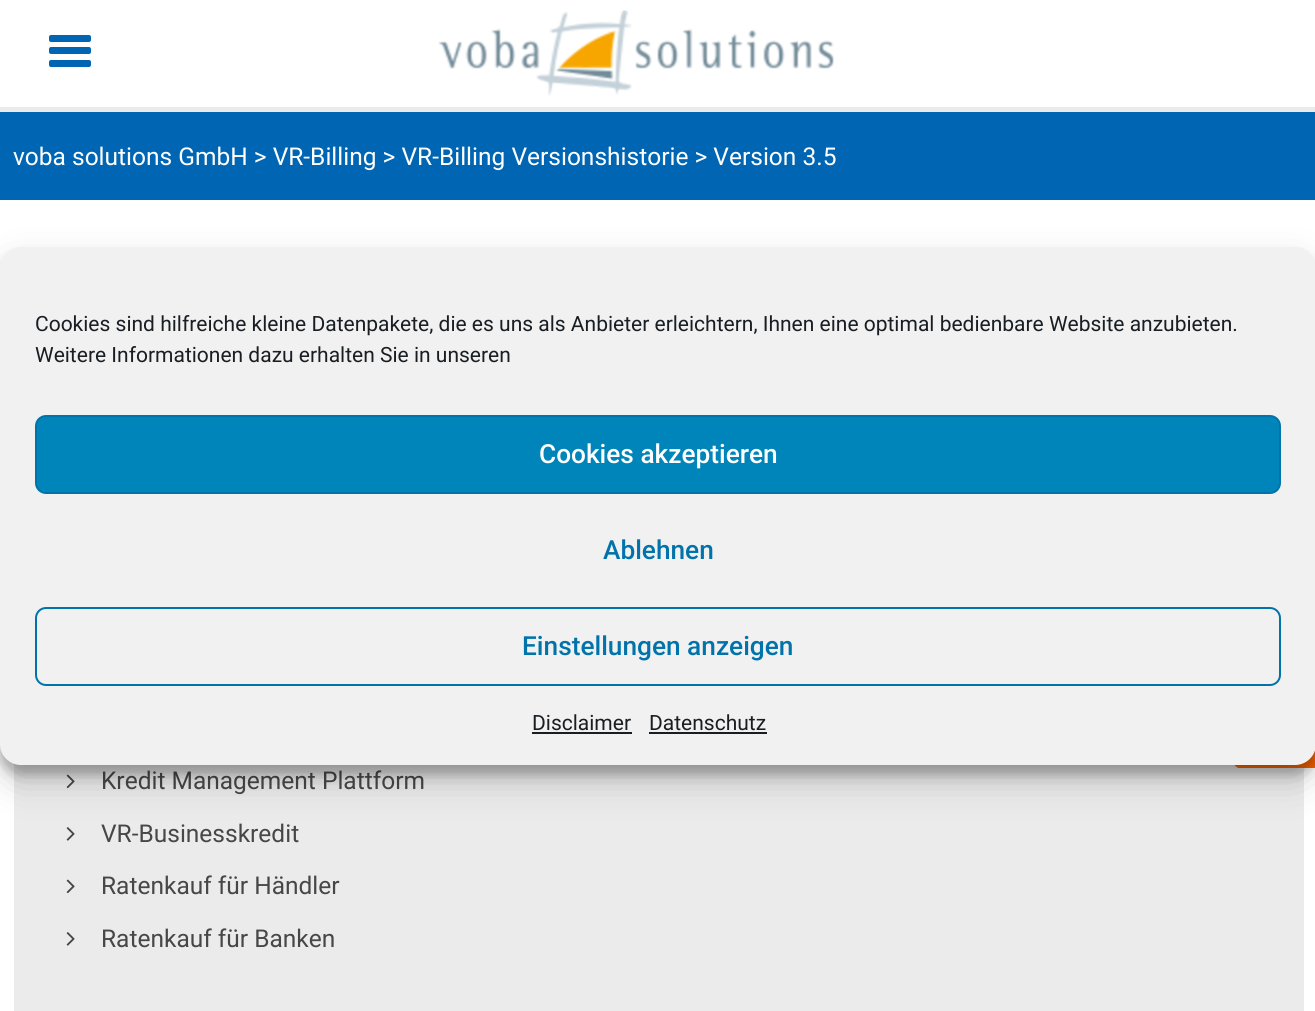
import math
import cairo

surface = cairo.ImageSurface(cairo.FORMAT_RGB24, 1315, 1011)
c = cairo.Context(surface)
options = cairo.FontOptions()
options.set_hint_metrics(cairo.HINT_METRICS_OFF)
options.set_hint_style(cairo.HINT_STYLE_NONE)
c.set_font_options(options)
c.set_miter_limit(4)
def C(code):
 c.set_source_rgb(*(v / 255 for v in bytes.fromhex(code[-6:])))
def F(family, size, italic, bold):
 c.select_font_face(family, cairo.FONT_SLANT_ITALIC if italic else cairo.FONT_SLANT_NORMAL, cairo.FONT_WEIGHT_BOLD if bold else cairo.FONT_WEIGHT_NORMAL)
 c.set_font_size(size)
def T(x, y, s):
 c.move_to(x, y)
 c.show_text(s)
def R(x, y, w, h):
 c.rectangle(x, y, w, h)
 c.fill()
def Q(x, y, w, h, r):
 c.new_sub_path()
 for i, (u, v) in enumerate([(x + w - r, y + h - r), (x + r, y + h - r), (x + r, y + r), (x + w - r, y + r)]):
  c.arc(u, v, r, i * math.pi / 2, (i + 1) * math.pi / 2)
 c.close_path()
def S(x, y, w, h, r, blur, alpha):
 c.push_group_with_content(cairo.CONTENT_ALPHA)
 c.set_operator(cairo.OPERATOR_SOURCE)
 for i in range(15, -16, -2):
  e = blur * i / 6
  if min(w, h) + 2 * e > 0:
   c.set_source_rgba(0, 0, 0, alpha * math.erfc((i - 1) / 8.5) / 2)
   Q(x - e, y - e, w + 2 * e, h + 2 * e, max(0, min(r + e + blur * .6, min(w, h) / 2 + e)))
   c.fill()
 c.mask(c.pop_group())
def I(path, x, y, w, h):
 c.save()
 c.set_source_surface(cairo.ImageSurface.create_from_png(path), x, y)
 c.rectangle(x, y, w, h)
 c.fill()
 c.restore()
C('ffffff')
c.paint()
C('ebebeb')
R(0,107,1315,5)
C('0066b3')
Q(49,35,42,7,2)
c.fill()
Q(49,47,42,7,2)
c.fill()
Q(49,60,42,7,2)
c.fill()
I('1.png',438,10,396,86)
R(0,112,1315,88)
F('Roboto',24.5,0,0)
C('ffffff')
T(13,165,'voba solutions GmbH > VR-Billing > VR-Billing Versionshistorie > Version 3.5')
C('ebebeb')
R(14,763,1290,248)
C('ff6600')
c.new_path()
c.move_to(1234,764)
c.line_to(1234,538)
c.curve_to(1235,535,1238,533,1241,533)
c.line_to(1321,533)
c.line_to(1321,768)
c.line_to(1239,768)
c.curve_to(1237,768,1235,766,1234,764)
c.close_path()
c.fill()
I('2.png',66,774,9,15)
C('474747')
T(101,789,'Kredit Management Plattform')
I('3.png',66,827,9,14)
T(101,842,'VR-Businesskredit')
I('2.png',66,879,9,15)
T(101,894,'Ratenkauf für Händler')
I('3.png',66,932,9,14)
T(101,947,'Ratenkauf für Banken')
C('000000')
S(0,257,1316,518,21,5,.23)
S(0,264,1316,518,21,17.5,.19)
C('f1f1f1')
Q(0,247,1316,518,21)
c.fill()
F('Roboto',21,0,0)
C('191e23')
T(35,331,'Cookies sind hilfreiche kleine Datenpakete, die es uns als Anbieter erleichtern, Ihnen eine optimal bedienbare Website anzubieten.')
T(35,362,'Weitere Informationen dazu erhalten Sie in unseren')
C('0085ba')
Q(36,416,1244,77,10)
c.fill_preserve()
C('0073aa')
c.stroke()
F('Roboto Medium',26.25,0,0)
C('ffffff')
T(539,463,'Cookies akzeptieren')
C('0073aa')
T(603,559,'Ablehnen')
Q(36,608,1244,77,10)
c.stroke()
T(522,655,'Einstellungen anzeigen')
F('Roboto',21,0,0)
C('191e23')
T(532,730,'Disclaimer')
R(532,732,100,2)
T(649,730,'Datenschutz')
R(649,732,118,2)
surface.write_to_png('o.png')
